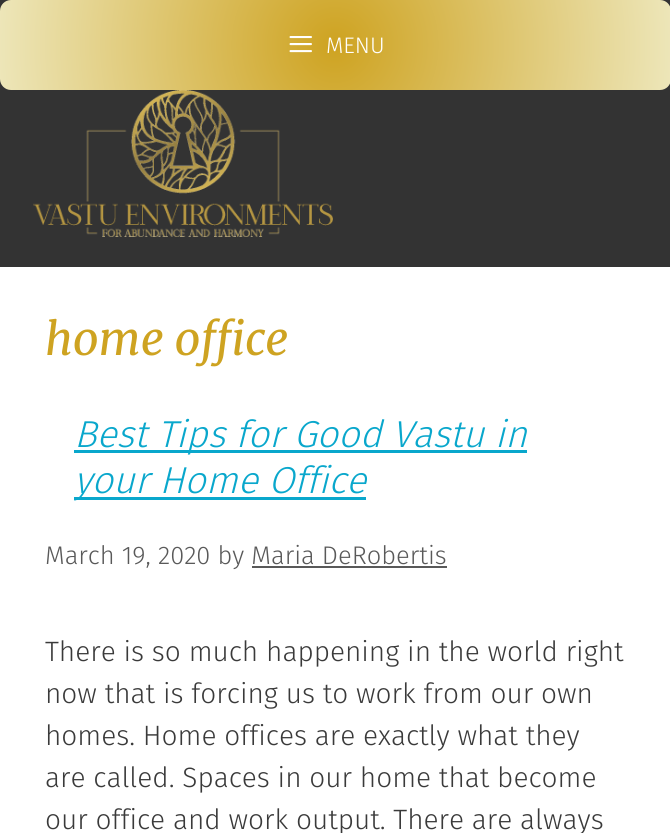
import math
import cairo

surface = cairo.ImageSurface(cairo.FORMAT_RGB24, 670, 833)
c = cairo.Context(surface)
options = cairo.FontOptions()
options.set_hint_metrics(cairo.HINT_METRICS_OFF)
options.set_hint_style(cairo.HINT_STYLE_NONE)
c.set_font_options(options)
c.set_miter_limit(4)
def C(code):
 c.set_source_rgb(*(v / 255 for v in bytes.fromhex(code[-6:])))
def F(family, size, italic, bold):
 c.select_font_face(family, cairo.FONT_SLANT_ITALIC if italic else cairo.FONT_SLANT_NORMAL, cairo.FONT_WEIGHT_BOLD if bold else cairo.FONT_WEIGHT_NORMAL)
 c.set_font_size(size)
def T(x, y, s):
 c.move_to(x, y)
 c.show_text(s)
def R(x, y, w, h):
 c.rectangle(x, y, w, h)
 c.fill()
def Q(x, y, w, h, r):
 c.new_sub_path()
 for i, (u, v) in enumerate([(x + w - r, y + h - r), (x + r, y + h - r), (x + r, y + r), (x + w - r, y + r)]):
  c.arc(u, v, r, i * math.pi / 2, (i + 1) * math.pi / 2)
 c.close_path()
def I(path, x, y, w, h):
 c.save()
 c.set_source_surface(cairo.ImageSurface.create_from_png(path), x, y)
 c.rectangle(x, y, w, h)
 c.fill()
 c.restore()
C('ffffff')
c.paint()
C('333333')
R(0,0,670,267)
gradient = cairo.RadialGradient(335,45,0,335,45,338)
gradient.add_color_stop_rgba(0,0.808,0.639,0.129,1)
gradient.add_color_stop_rgba(1,0.929,0.902,0.725,1)
c.set_source(gradient)
Q(0,0,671,90,11)
c.fill()
I('1.png',289,36,23,17)
F('Fira Sans Light',22.5,0,0)
C('ffffff')
T(326,53,'MENU')
I('2.png',33,90,300,147)
F('Merriweather',45,1,0)
C('cea321')
T(45,355,'home office')
C('09a7cc')
R(74,450,453,3)
F('Fira Sans Light',37.5,1,0)
T(74,447,'Best Tips for Good Vastu in')
R(74,497,292,3)
T(74,493,'your Home Office')
F('Fira Sans Light',25.5,0,0)
C('595959')
T(45,564,'March 19, 2020 by Maria DeRobertis')
R(252,566,195,2)
F('Fira Sans Light',28,0,0)
C('3a3a3a')
T(45,661,'There is so much happening in the world right')
T(45,703,'now that is forcing us to work from our own')
T(45,745,'homes. Home offices are exactly what they')
T(45,787,'are called. Spaces in our home that become')
T(45,829,'our office and work output. There are always')
surface.write_to_png('o.png')
